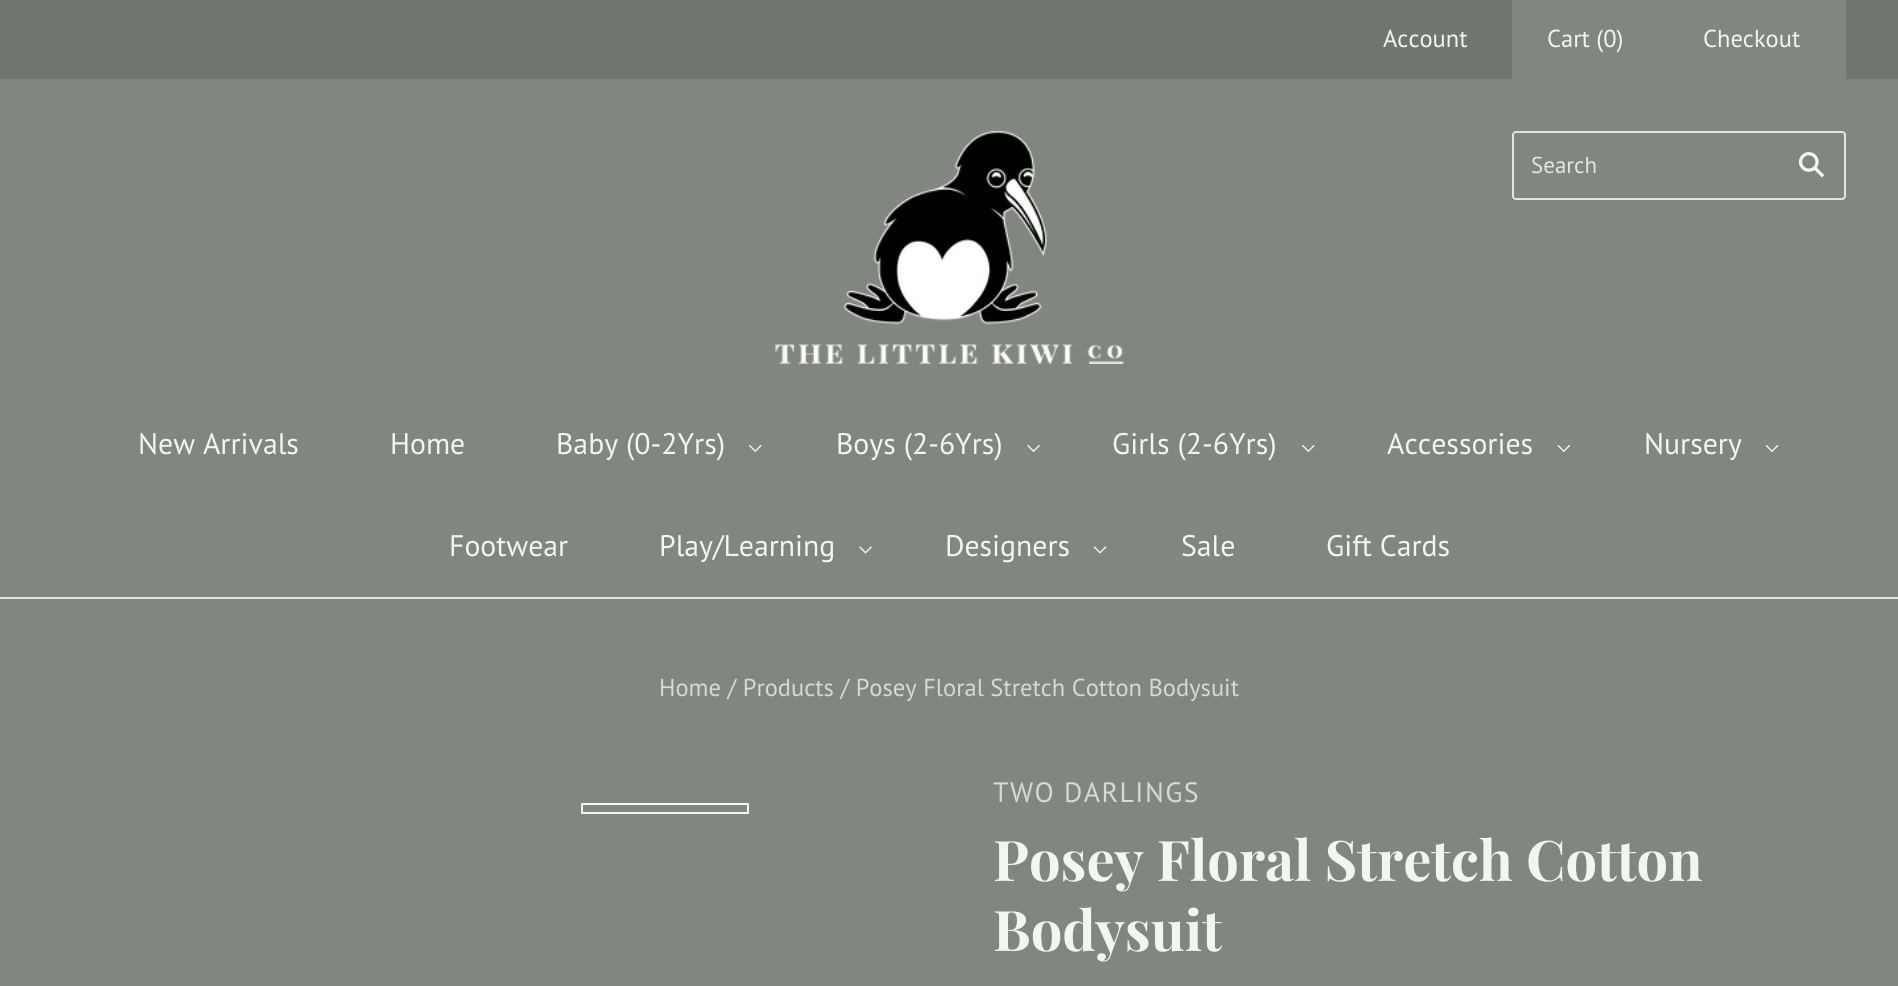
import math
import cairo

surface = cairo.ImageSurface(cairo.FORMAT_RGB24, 1898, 986)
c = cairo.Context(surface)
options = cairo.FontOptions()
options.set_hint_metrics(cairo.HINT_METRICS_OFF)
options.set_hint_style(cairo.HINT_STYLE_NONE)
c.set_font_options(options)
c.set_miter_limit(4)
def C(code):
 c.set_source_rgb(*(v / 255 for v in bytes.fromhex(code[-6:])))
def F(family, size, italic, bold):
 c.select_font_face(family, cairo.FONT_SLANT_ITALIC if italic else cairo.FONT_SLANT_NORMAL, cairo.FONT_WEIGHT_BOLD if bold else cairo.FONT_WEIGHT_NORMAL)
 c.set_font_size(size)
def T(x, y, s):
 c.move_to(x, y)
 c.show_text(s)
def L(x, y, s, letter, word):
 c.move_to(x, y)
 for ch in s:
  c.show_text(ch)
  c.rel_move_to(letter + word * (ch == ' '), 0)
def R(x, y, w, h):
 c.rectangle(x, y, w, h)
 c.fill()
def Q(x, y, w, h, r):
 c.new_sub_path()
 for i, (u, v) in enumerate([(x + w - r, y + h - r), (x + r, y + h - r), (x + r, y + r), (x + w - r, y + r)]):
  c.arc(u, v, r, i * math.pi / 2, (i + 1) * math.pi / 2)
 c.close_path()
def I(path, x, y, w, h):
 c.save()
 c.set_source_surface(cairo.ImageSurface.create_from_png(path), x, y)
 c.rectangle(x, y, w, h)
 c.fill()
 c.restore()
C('81867e')
c.paint()
C('e4e4e4')
R(0,597,1898,2)
C('727670')
R(0,0,1898,79)
F('PT Sans',24.5,0,0)
C('f1f7ed')
T(1383,47,'Account')
C('81867e')
R(1512,0,334,79)
C('f1f7ed')
T(1547,47,'Cart (0)')
T(1703,47,'Checkout')
I('1.png',775,131,349,233)
Q(1513,132,332,67,3)
C('e4e4e4')
c.stroke()
F('PT Sans',23,0,0)
T(1531,173,'Search')
I('2.png',1798,152,27,26)
F('PT Sans',29.75,0,0)
C('f1f7ed')
T(138,454,'New Arrivals')
T(390,454,'Home')
T(556,454,'Baby (0-2Yrs)')
I('3.png',749,445,13,7)
T(836,454,'Boys (2-6Yrs)')
I('4.png',1027,445,13,7)
T(1112,454,'Girls (2-6Yrs)')
I('3.png',1302,445,13,7)
T(1387,454,'Accessories')
I('5.png',1557,445,14,7)
T(1644,454,'Nursery')
I('6.png',1765,445,14,7)
T(449,556,'Footwear')
T(659,556,'Play/Learning')
I('7.png',859,546,13,8)
T(945,556,'Designers')
I('8.png',1093,546,14,8)
T(1181,556,'Sale')
T(1326,556,'Gift Cards')
F('PT Sans',24.5,0,0)
C('d4dbd0')
T(659,696,'Home / Products / Posey Floral Stretch Cotton Bodysuit')
c.rectangle(582,804,166,9)
C('f1f7ed')
c.stroke()
F('PT Sans',28,0,0)
C('d4dbd0')
L(993,802,'TWO DARLINGS',1.4,0)
F('Playfair Display',56,0,1)
C('f1f7ed')
T(993,881,'Posey Floral Stretch Cotton')
T(993,951,'Bodysuit')
surface.write_to_png('o.png')
